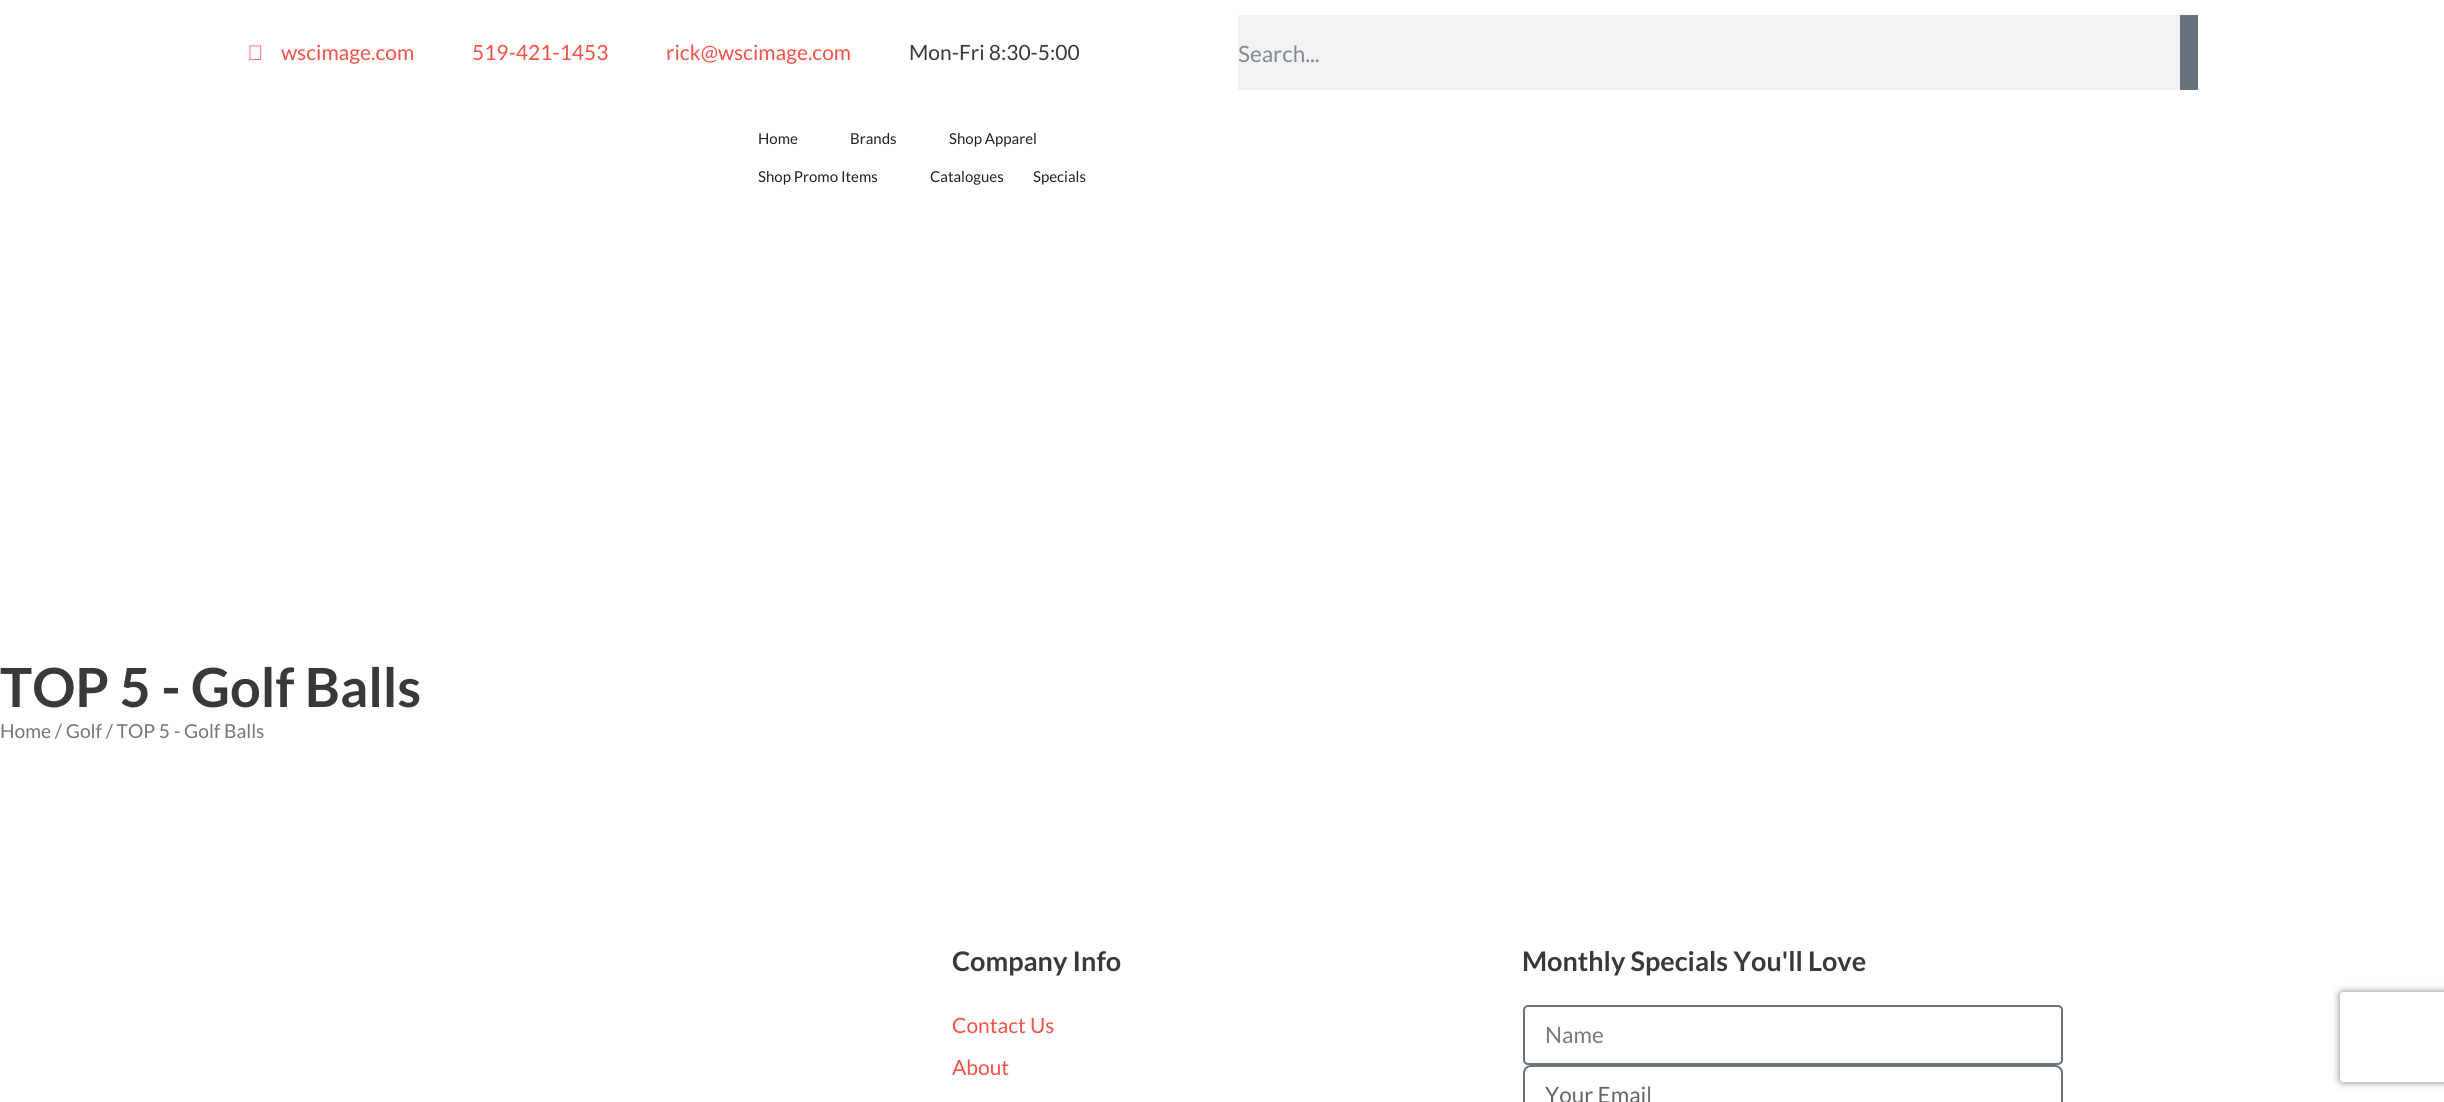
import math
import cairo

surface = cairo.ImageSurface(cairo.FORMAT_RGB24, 2444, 1102)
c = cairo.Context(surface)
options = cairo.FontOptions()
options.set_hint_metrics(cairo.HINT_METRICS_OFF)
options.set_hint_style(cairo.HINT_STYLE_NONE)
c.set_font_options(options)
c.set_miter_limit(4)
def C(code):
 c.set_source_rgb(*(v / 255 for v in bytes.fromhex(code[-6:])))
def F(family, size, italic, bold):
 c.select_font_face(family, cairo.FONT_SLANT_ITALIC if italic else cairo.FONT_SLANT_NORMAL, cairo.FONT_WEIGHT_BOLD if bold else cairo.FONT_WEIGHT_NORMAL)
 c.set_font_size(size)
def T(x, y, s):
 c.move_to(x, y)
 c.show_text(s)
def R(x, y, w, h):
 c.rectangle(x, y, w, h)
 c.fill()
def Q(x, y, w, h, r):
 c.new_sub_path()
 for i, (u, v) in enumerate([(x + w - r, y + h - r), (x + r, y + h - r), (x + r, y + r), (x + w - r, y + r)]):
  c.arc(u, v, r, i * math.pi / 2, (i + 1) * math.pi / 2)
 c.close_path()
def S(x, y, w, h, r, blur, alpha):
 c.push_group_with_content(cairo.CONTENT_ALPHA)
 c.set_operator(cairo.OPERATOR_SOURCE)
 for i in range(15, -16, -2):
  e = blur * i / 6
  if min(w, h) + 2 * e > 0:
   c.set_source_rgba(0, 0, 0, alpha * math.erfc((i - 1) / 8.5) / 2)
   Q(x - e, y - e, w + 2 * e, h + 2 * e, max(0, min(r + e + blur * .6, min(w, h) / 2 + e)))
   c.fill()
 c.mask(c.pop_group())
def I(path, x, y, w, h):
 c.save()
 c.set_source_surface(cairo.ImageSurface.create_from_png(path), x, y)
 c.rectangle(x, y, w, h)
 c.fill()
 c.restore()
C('ffffff')
c.paint()
I('1.png',249,45,13,15)
F('Lato',21,0,0)
C('f55145')
T(281,60,'wscimage.com')
T(472,60,'519-421-1453')
T(666,60,'rick@wscimage.com')
C('3a3939')
T(909,60,'Mon-Fri 8:30-5:00')
C('f1f2f3')
R(1238,15,942,75)
F('Lato',22.5,0,0)
C('868a8e')
T(1238,62,'Search...')
C('69727d')
R(2180,15,18,75)
F('Lato',15,0,0)
C('1f2124')
T(758,144,'Home')
T(850,144,'Brands')
T(949,144,'Shop Apparel')
T(758,182,'Shop Promo Items')
T(930,182,'Catalogues')
T(1033,182,'Specials')
F('Lato',54,0,1)
C('3a3939')
T(0,707,'TOP 5 - Golf Balls')
F('Lato',19.25,0,0)
C('767676')
T(0,738,'Home / Golf / TOP 5 - Golf Balls')
F('Lato',27,0,1)
C('3a3939')
T(952,971,'Company Info')
F('Lato',21,0,0)
C('f55145')
T(952,1033,'Contact Us')
T(952,1075,'About')
F('Lato',27,0,1)
C('3a3939')
T(1522,971,'Monthly Specials You\'ll Love')
Q(1524,1006,538,58,4)
C('69727d')
c.stroke()
F('Lato',22.5,0,0)
C('797a7c')
T(1545,1043,'Name')
Q(1524,1066,538,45,7)
C('69727d')
c.stroke()
C('666666')
T(1545,1103,'Your Email')
c.save()
c.set_fill_rule(cairo.FILL_RULE_EVEN_ODD)
c.new_path()
c.move_to(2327,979)
c.line_to(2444,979)
c.line_to(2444,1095)
c.line_to(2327,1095)
c.close_path()
c.move_to(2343,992)
c.line_to(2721,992)
c.curve_to(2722.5,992,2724,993.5,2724,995)
c.line_to(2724,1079)
c.curve_to(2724,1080.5,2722.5,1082,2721,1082)
c.line_to(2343,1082)
c.curve_to(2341.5,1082,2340,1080.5,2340,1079)
c.line_to(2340,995)
c.curve_to(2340,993.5,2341.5,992,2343,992)
c.close_path()
c.clip()
C('808080')
S(2340,992,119,90,3,4,1)
c.restore()
surface.write_to_png('o.png')
